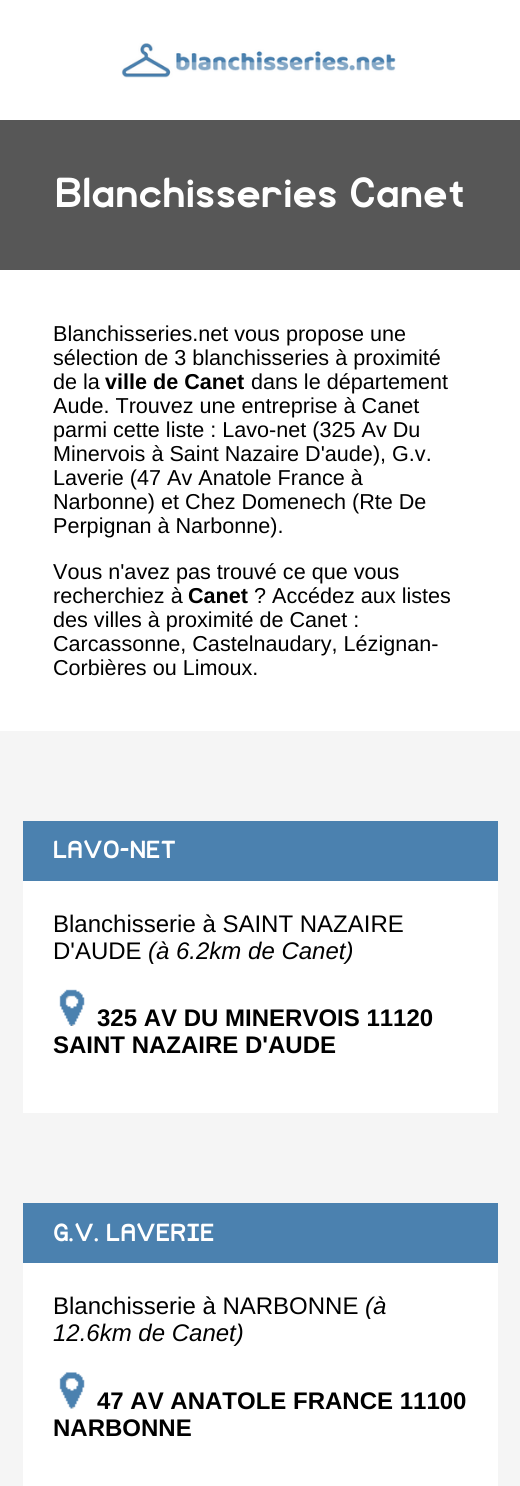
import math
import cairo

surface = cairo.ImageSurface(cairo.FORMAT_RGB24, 520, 1486)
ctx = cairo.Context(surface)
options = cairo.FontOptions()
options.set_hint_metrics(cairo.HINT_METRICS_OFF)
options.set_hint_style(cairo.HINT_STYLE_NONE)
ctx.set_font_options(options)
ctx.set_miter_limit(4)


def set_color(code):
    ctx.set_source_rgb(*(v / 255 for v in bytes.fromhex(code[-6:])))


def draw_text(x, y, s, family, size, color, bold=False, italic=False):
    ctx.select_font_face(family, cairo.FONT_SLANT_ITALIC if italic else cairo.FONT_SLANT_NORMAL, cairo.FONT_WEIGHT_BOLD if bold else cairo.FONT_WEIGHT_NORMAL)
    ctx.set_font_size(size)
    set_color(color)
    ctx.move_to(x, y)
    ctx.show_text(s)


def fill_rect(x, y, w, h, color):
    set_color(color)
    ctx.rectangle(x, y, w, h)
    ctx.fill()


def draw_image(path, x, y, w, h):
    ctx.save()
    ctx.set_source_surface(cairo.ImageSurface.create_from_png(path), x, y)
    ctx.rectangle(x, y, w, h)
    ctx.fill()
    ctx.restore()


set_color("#f5f5f5")
ctx.paint()
fill_rect(0, 0, 520, 120, "#ffffff")
draw_image("assets/img1.png", 121, 43, 275, 35)
fill_rect(0, 120, 520, 150, "#575757")
draw_text(55, 207, "Blanchisseries Canet", "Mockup", 40.75, "#ffffff", bold=True)
fill_rect(0, 270, 520, 461, "#ffffff")
draw_text(53, 341, "Blanchisseries.net vous propose une", "Liberation Sans", 21.6, "#000000")
draw_text(53, 365, "sélection de 3 blanchisseries à proximité", "Liberation Sans", 21.6, "#000000")
draw_text(53, 389, "de la", "Liberation Sans", 21.6, "#000000")
draw_text(105, 389, "ville de Canet", "Liberation Sans", 21.6, "#000000", bold=True)
draw_text(251, 389, "dans le département", "Liberation Sans", 21.6, "#000000")
draw_text(53, 413, "Aude. Trouvez une entreprise à Canet", "Liberation Sans", 21.6, "#000000")
draw_text(53, 437, "parmi cette liste : Lavo-net (325 Av Du", "Liberation Sans", 21.6, "#000000")
draw_text(53, 461, "Minervois à Saint Nazaire D'aude), G.v.", "Liberation Sans", 21.6, "#000000")
draw_text(53, 485, "Laverie (47 Av Anatole France à", "Liberation Sans", 21.6, "#000000")
draw_text(53, 509, "Narbonne) et Chez Domenech (Rte De", "Liberation Sans", 21.6, "#000000")
draw_text(53, 533, "Perpignan à Narbonne).", "Liberation Sans", 21.6, "#000000")
draw_text(53, 579, "Vous n'avez pas trouvé ce que vous", "Liberation Sans", 21.6, "#000000")
draw_text(53, 603, "recherchiez à", "Liberation Sans", 21.6, "#000000")
draw_text(188, 603, "Canet", "Liberation Sans", 21.6, "#000000", bold=True)
draw_text(254, 603, "? Accédez aux listes", "Liberation Sans", 21.6, "#000000")
draw_text(53, 627, "des villes à proximité de Canet :", "Liberation Sans", 21.6, "#000000")
draw_text(53, 651, "Carcassonne, Castelnaudary, Lézignan-", "Liberation Sans", 21.6, "#000000")
draw_text(53, 675, "Corbières ou Limoux.", "Liberation Sans", 21.6, "#000000")
fill_rect(23, 821, 475, 60, "#4b81af")
draw_text(53, 858, "LAVO-NET", "Mockup", 24, "#ffffff", bold=True)
fill_rect(23, 881, 475, 232, "#ffffff")
draw_text(53, 932, "Blanchisserie à SAINT NAZAIRE", "Liberation Sans", 24, "#000000")
draw_text(53, 959, "D'AUDE", "Liberation Sans", 24, "#000000")
draw_text(148, 959, "(à 6.2km de Canet)", "Liberation Sans", 24, "#000000", italic=True)
draw_image("assets/img2.png", 59, 989, 26, 37)
draw_text(97, 1026, "325 AV DU MINERVOIS 11120", "Liberation Sans", 24, "#000000", bold=True)
draw_text(53, 1053, "SAINT NAZAIRE D'AUDE", "Liberation Sans", 24, "#000000", bold=True)
fill_rect(23, 1203, 475, 60, "#4b81af")
draw_text(53, 1241, "G.V. LAVERIE", "Mockup", 24, "#ffffff", bold=True)
fill_rect(23, 1263, 475, 223, "#ffffff")
draw_text(53, 1314, "Blanchisserie à NARBONNE", "Liberation Sans", 24, "#000000")
draw_text(365, 1314, "(à", "Liberation Sans", 24, "#000000", italic=True)
draw_text(53, 1341, "12.6km de Canet)", "Liberation Sans", 24, "#000000", italic=True)
draw_image("assets/img3.png", 59, 1372, 26, 37)
draw_text(97, 1409, "47 AV ANATOLE FRANCE 11100", "Liberation Sans", 24, "#000000", bold=True)
draw_text(53, 1436, "NARBONNE", "Liberation Sans", 24, "#000000", bold=True)
surface.write_to_png("output.png")
